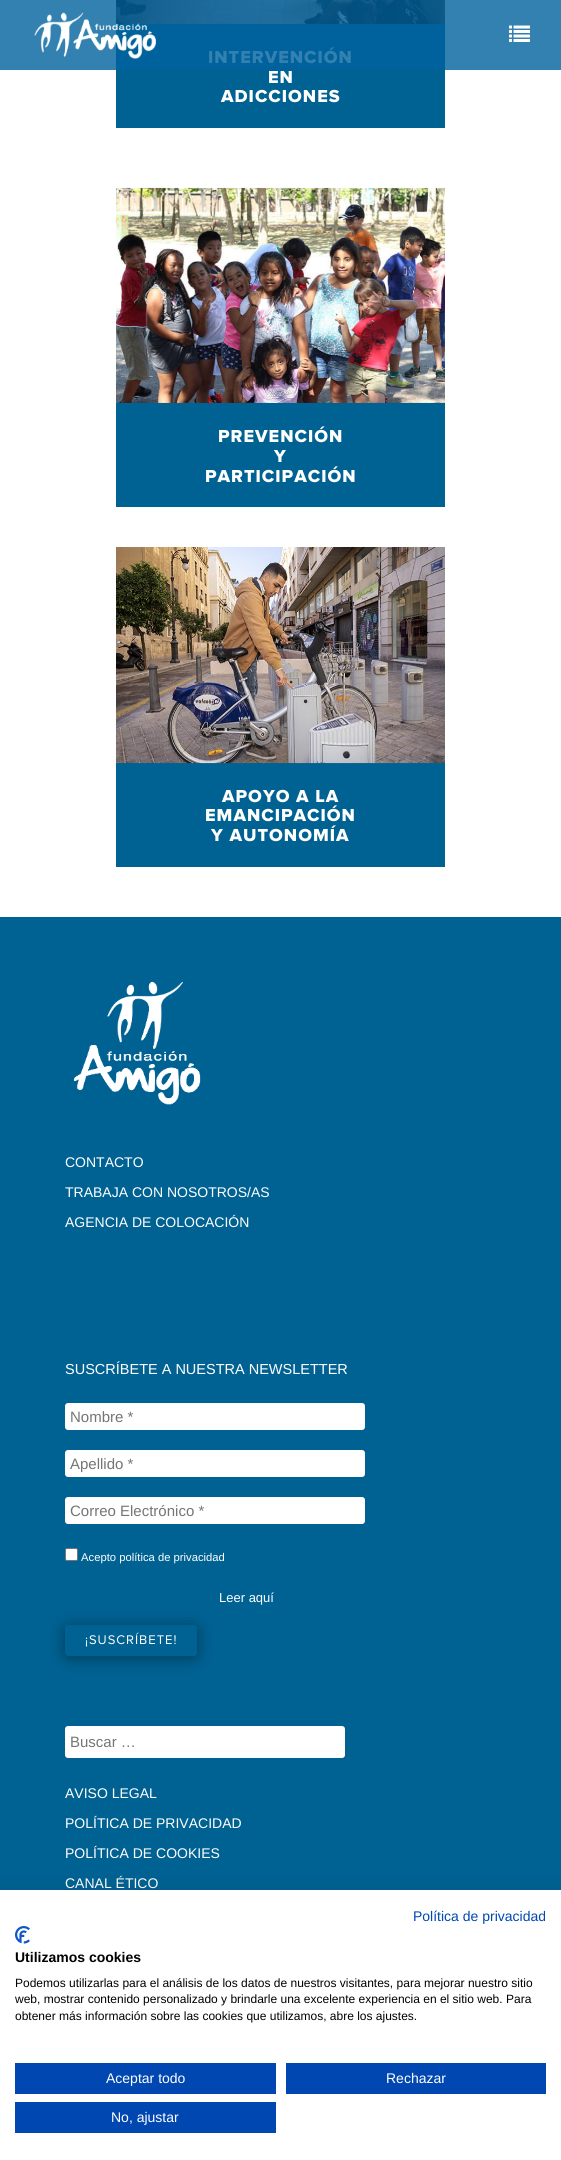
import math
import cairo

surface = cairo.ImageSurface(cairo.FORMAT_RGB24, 561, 2160)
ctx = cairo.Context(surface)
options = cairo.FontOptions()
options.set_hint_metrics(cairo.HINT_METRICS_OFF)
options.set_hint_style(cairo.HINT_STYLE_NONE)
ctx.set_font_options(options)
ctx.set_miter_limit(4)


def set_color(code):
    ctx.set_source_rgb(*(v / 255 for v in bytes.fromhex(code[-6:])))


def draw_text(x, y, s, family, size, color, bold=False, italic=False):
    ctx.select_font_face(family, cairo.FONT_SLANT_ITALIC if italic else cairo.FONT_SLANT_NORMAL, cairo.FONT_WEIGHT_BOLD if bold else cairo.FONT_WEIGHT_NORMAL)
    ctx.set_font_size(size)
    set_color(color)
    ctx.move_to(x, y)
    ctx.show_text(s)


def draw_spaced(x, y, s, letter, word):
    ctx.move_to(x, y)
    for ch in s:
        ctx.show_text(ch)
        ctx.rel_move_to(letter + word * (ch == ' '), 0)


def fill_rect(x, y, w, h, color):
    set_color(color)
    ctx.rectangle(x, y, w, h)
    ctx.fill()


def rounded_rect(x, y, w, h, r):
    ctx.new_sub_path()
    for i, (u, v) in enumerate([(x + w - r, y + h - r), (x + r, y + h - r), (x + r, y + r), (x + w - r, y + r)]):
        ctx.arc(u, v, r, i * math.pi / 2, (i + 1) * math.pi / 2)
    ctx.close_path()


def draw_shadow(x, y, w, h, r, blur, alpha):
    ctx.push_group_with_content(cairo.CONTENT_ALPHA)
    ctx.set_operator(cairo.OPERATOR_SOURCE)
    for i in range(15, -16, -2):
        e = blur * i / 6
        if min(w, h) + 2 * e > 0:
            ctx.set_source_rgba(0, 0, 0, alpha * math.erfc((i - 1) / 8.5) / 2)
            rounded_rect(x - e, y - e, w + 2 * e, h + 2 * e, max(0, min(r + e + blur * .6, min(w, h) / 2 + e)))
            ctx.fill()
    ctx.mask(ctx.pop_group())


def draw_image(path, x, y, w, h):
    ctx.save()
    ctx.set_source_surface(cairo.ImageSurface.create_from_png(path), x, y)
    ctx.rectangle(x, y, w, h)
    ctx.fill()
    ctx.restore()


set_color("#ffffff")
ctx.paint()
fill_rect(0, 0, 561, 70, "#3381b1")
fill_rect(116, 24, 329, 46, "#00629c")
draw_image("assets/img3.png", 116, 0, 329, 25)
draw_image("assets/img1.png", 34, 12, 122, 48)
draw_image("assets/img2.png", 509, 25, 21, 17)
fill_rect(116, 70, 329, 58, "#006293")
ctx.select_font_face("Proxima Nova ExtraBold")
ctx.set_font_size(18)
set_color("#3381b1")
draw_spaced(208, 63, "INTERVENCIÓN", 1, 0)
set_color("#ffffff")
draw_spaced(268, 83, "EN", 1, 0)
draw_spaced(221, 102, "ADICCIONES", 1, 0)
fill_rect(116, 402, 329, 105, "#006293")
draw_image("assets/img4.png", 116, 187, 329, 216)
set_color("#ffffff")
draw_spaced(218, 442, "PREVENCIÓN", 1, 0)
draw_spaced(274, 462, "Y", 1, 0)
draw_spaced(205, 482, "PARTICIPACIÓN", 1, 0)
fill_rect(116, 763, 329, 104, "#006293")
draw_image("assets/img5.png", 116, 547, 329, 217)
set_color("#ffffff")
draw_spaced(222, 802, "APOYO A LA", 1, 0)
draw_spaced(205, 821, "EMANCIPACIÓN", 1, 0)
draw_spaced(211, 841, "Y AUTONOMÍA", 1, 0)
fill_rect(0, 917, 561, 973, "#006293")
draw_image("assets/img6.png", 73, 981, 128, 124)
draw_text(65, 1167, "CONTACTO", "Liberation Sans", 14, "#ffffff")
draw_text(65, 1197, "TRABAJA CON NOSOTROS/AS", "Liberation Sans", 14, "#ffffff")
draw_text(65, 1227, "AGENCIA DE COLOCACIÓN", "Liberation Sans", 14, "#ffffff")
draw_text(65, 1374, "SUSCRÍBETE A NUESTRA NEWSLETTER", "Liberation Sans", 14.5, "#ffffff")
rounded_rect(65, 1403, 300, 27, 3)
ctx.fill()
draw_text(70, 1422, "Nombre *", "Liberation Sans", 15, "#757575")
set_color("#ffffff")
rounded_rect(65, 1450, 300, 27, 3)
ctx.fill()
draw_text(70, 1469, "Apellido *", "Liberation Sans", 15, "#757575")
set_color("#ffffff")
rounded_rect(65, 1497, 300, 27, 3)
ctx.fill()
draw_text(70, 1516, "Correo Electrónico *", "Liberation Sans", 15, "#757575")
set_color("#ffffff")
rounded_rect(65.5, 1548.5, 12, 12, 1.5)
ctx.fill_preserve()
set_color("#767676")
ctx.set_line_width(1)
ctx.stroke()
draw_text(81, 1561, "Acepto política de privacidad", "Liberation Sans", 11.25, "#ffffff")
set_color("#000000")
draw_shadow(65, 1627, 132, 31, 3, 8.5, 0.4)
draw_text(219, 1602, "Leer aquí", "Liberation Sans", 13, "#ffffff")
set_color("#006293")
rounded_rect(65, 1625, 132, 31, 3)
ctx.fill()
ctx.select_font_face("Proxima Nova")
set_color("#ffffff")
draw_spaced(85, 1644, "¡SUSCRÍBETE!", 1, 0)
rounded_rect(65, 1726, 280, 32, 3)
ctx.fill()
draw_text(70, 1747, "Buscar …", "Liberation Sans", 15, "#757575")
draw_text(65, 1798, "AVISO LEGAL", "Liberation Sans", 14, "#ffffff")
draw_text(65, 1828, "POLÍTICA DE PRIVACIDAD", "Liberation Sans", 14, "#ffffff")
draw_text(65, 1858, "POLÍTICA DE COOKIES", "Liberation Sans", 14, "#ffffff")
draw_text(65, 1888, "CANAL ÉTICO", "Liberation Sans", 14, "#ffffff")
set_color("#000000")
draw_shadow(0, 1890, 561, 270, 0, 12, 0.1)
fill_rect(0, 1890, 561, 270, "#ffffff")
draw_text(413, 1921, "Política de privacidad", "Liberation Sans", 14, "#0047b2")
draw_image("assets/img7.png", 15, 1926, 15, 18)
draw_text(15, 1962, "Utilizamos cookies", "Liberation Sans", 14, "#000000", bold=True)
draw_text(15, 1987, "Podemos utilizarlas para el análisis de los datos de nuestros visitantes, para mejorar nuestro sitio", "Liberation Sans", 12, "#000000")
draw_text(15, 2003, "web, mostrar contenido personalizado y brindarle una excelente experiencia en el sitio web. Para", "Liberation Sans", 12, "#000000")
draw_text(15, 2020, "obtener más información sobre las cookies que utilizamos, abre los ajustes.", "Liberation Sans", 12, "#000000")
fill_rect(15, 2063, 261, 31, "#0047b2")
draw_text(106, 2083, "Aceptar todo", "Liberation Sans", 14, "#ffffff")
fill_rect(286, 2063, 260, 31, "#0047b2")
draw_text(386, 2083, "Rechazar", "Liberation Sans", 14, "#ffffff")
fill_rect(15, 2102, 261, 31, "#0047b2")
draw_text(111, 2122, "No, ajustar", "Liberation Sans", 14, "#ffffff")
surface.write_to_png("output.png")
